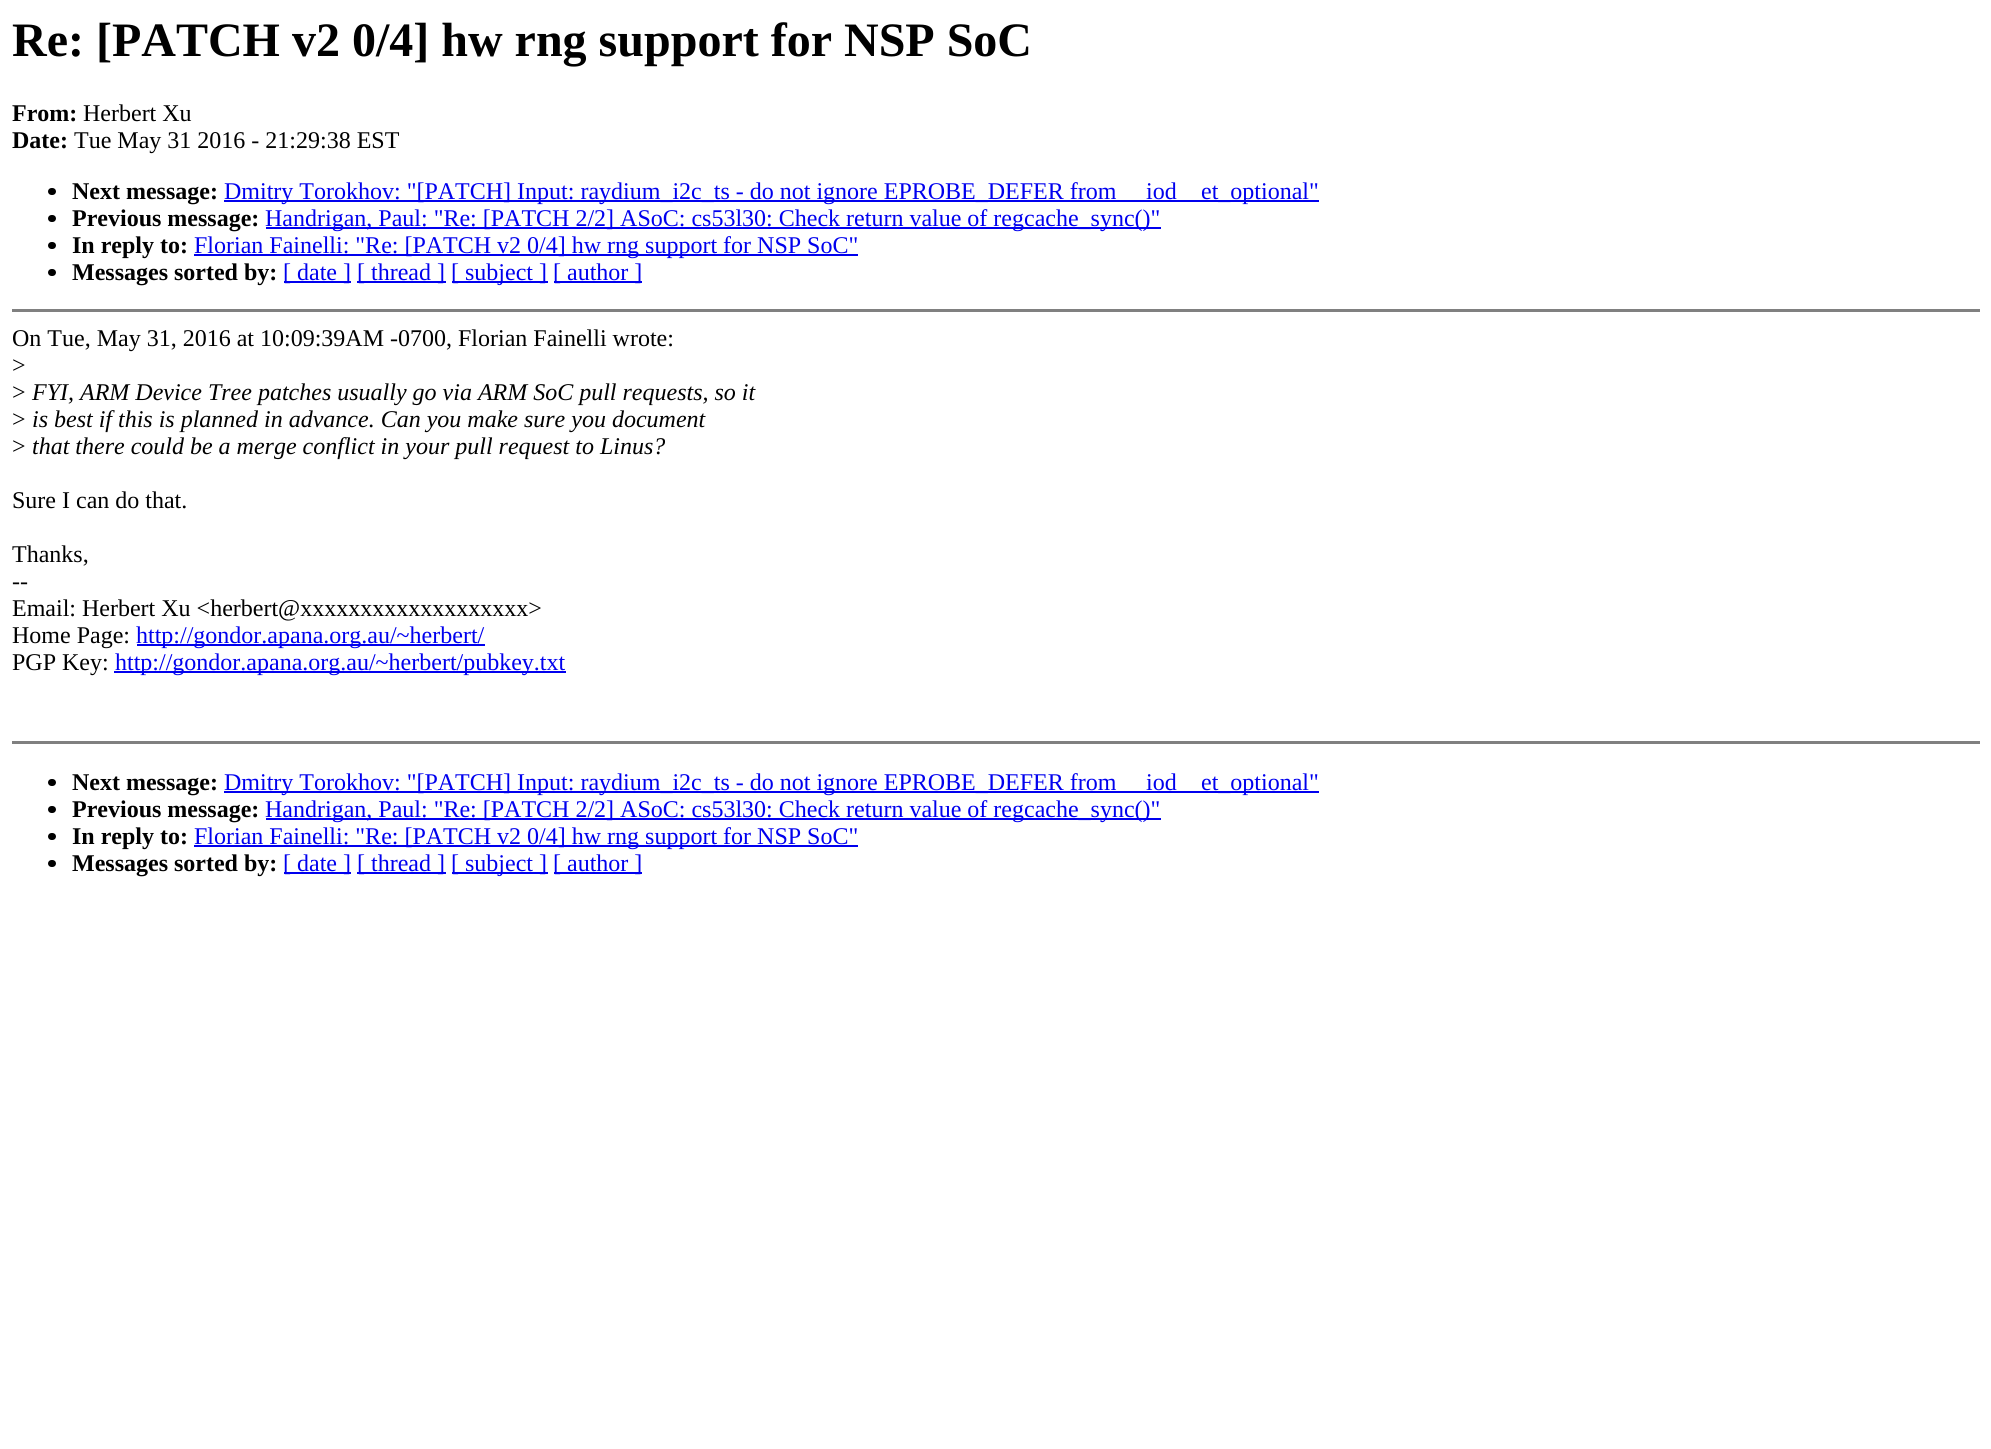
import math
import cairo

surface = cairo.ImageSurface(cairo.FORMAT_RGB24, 1991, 1449)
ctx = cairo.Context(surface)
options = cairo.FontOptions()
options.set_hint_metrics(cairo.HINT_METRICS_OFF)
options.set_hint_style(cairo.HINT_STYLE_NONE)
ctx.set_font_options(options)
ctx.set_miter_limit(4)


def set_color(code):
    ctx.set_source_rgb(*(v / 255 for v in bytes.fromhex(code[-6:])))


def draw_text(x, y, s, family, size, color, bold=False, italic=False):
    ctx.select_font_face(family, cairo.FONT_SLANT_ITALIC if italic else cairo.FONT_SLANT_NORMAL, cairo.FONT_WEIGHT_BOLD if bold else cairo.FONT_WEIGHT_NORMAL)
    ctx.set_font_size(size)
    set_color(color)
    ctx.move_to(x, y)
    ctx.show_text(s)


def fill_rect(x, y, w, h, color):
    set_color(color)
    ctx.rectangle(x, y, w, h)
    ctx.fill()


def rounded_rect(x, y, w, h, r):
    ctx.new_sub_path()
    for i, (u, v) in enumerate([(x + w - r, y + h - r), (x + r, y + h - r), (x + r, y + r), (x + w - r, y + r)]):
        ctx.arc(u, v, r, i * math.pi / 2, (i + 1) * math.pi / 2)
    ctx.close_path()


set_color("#ffffff")
ctx.paint()
draw_text(12, 56, "Re: [PATCH v2 0/4] hw rng support for NSP SoC", "Liberation Serif", 48, "#000000", bold=True)
draw_text(12, 121, "From:", "Liberation Serif", 24, "#000000", bold=True)
draw_text(83, 121, "Herbert Xu", "Liberation Serif", 24, "#000000")
draw_text(12, 148, "Date:", "Liberation Serif", 24, "#000000", bold=True)
draw_text(74, 148, "Tue May 31 2016 - 21:29:38 EST", "Liberation Serif", 24, "#000000")
rounded_rect(48, 188, 8, 7, 3.5)
ctx.fill()
draw_text(72, 199, "Next message:", "Liberation Serif", 24, "#000000", bold=True)
fill_rect(224, 200, 1095, 2, "#0000ee")
draw_text(224, 199, "Dmitry Torokhov: \"[PATCH] Input: raydium_i2c_ts - do not ignore EPROBE_DEFER from", "Liberation Serif", 24, "#0000ee")
draw_text(1146, 199, "iod", "Liberation Serif", 24, "#0000ee")
draw_text(1201, 199, "et_optional\"", "Liberation Serif", 24, "#0000ee")
set_color("#000000")
rounded_rect(48, 215, 8, 7, 3.5)
ctx.fill()
draw_text(72, 226, "Previous message:", "Liberation Serif", 24, "#000000", bold=True)
fill_rect(266, 227, 895, 2, "#0000ee")
draw_text(265, 226, "Handrigan, Paul: \"Re: [PATCH 2/2] ASoC: cs53l30: Check return value of regcache_sync()\"", "Liberation Serif", 24, "#0000ee")
set_color("#000000")
rounded_rect(48, 242, 8, 7, 3.5)
ctx.fill()
draw_text(72, 253, "In reply to:", "Liberation Serif", 24, "#000000", bold=True)
fill_rect(194, 254, 664, 2, "#0000ee")
draw_text(194, 253, "Florian Fainelli: \"Re: [PATCH v2 0/4] hw rng support for NSP SoC\"", "Liberation Serif", 24, "#0000ee")
set_color("#000000")
rounded_rect(48, 269, 8, 7, 3.5)
ctx.fill()
draw_text(72, 280, "Messages sorted by:", "Liberation Serif", 24, "#000000", bold=True)
fill_rect(284, 281, 67, 2, "#0000ee")
draw_text(283, 280, "[ date ]", "Liberation Serif", 24, "#0000ee")
fill_rect(357, 281, 89, 2, "#0000ee")
draw_text(357, 280, "[ thread ]", "Liberation Serif", 24, "#0000ee")
fill_rect(452, 281, 96, 2, "#0000ee")
draw_text(451, 280, "[ subject ]", "Liberation Serif", 24, "#0000ee")
fill_rect(554, 281, 88, 2, "#0000ee")
draw_text(553, 280, "[ author ]", "Liberation Serif", 24, "#0000ee")
fill_rect(12, 309, 1968, 3, "#808080")
draw_text(12, 346, "On Tue, May 31, 2016 at 10:09:39AM -0700, Florian Fainelli wrote:", "Liberation Serif", 24, "#000000")
draw_text(12, 373, ">", "Liberation Serif", 24, "#000000")
draw_text(12, 400, ">", "Liberation Serif", 24, "#000000")
draw_text(32, 400, "FYI, ARM Device Tree patches usually go via ARM SoC pull requests, so it", "Liberation Serif", 24, "#000000", italic=True)
draw_text(12, 427, ">", "Liberation Serif", 24, "#000000")
draw_text(32, 427, "is best if this is planned in advance. Can you make sure you document", "Liberation Serif", 24, "#000000", italic=True)
draw_text(12, 454, ">", "Liberation Serif", 24, "#000000")
draw_text(32, 454, "that there could be a merge conflict in your pull request to Linus?", "Liberation Serif", 24, "#000000", italic=True)
draw_text(12, 508, "Sure I can do that.", "Liberation Serif", 24, "#000000")
draw_text(12, 562, "Thanks,", "Liberation Serif", 24, "#000000")
draw_text(12, 589, "--", "Liberation Serif", 24, "#000000")
draw_text(12, 616, "Email: Herbert Xu <herbert@xxxxxxxxxxxxxxxxxxx>", "Liberation Serif", 24, "#000000")
draw_text(12, 643, "Home Page:", "Liberation Serif", 24, "#000000")
fill_rect(137, 644, 348, 2, "#0000ee")
draw_text(136, 643, "http://gondor.apana.org.au/~herbert/", "Liberation Serif", 24, "#0000ee")
draw_text(12, 670, "PGP Key:", "Liberation Serif", 24, "#000000")
fill_rect(114, 671, 452, 2, "#0000ee")
draw_text(115, 670, "http://gondor.apana.org.au/~herbert/pubkey.txt", "Liberation Serif", 24, "#0000ee")
fill_rect(12, 741, 1968, 3, "#808080")
set_color("#000000")
rounded_rect(48, 779, 8, 7, 3.5)
ctx.fill()
draw_text(72, 790, "Next message:", "Liberation Serif", 24, "#000000", bold=True)
fill_rect(224, 791, 1095, 2, "#0000ee")
draw_text(224, 790, "Dmitry Torokhov: \"[PATCH] Input: raydium_i2c_ts - do not ignore EPROBE_DEFER from", "Liberation Serif", 24, "#0000ee")
draw_text(1146, 790, "iod", "Liberation Serif", 24, "#0000ee")
draw_text(1201, 790, "et_optional\"", "Liberation Serif", 24, "#0000ee")
set_color("#000000")
rounded_rect(48, 806, 8, 7, 3.5)
ctx.fill()
draw_text(72, 817, "Previous message:", "Liberation Serif", 24, "#000000", bold=True)
fill_rect(266, 818, 895, 2, "#0000ee")
draw_text(265, 817, "Handrigan, Paul: \"Re: [PATCH 2/2] ASoC: cs53l30: Check return value of regcache_sync()\"", "Liberation Serif", 24, "#0000ee")
set_color("#000000")
rounded_rect(48, 833, 8, 7, 3.5)
ctx.fill()
draw_text(72, 844, "In reply to:", "Liberation Serif", 24, "#000000", bold=True)
fill_rect(194, 845, 664, 2, "#0000ee")
draw_text(194, 844, "Florian Fainelli: \"Re: [PATCH v2 0/4] hw rng support for NSP SoC\"", "Liberation Serif", 24, "#0000ee")
set_color("#000000")
rounded_rect(48, 860, 8, 7, 3.5)
ctx.fill()
draw_text(72, 871, "Messages sorted by:", "Liberation Serif", 24, "#000000", bold=True)
fill_rect(284, 872, 67, 2, "#0000ee")
draw_text(283, 871, "[ date ]", "Liberation Serif", 24, "#0000ee")
fill_rect(357, 872, 89, 2, "#0000ee")
draw_text(357, 871, "[ thread ]", "Liberation Serif", 24, "#0000ee")
fill_rect(452, 872, 96, 2, "#0000ee")
draw_text(451, 871, "[ subject ]", "Liberation Serif", 24, "#0000ee")
fill_rect(554, 872, 88, 2, "#0000ee")
draw_text(553, 871, "[ author ]", "Liberation Serif", 24, "#0000ee")
surface.write_to_png("output.png")
